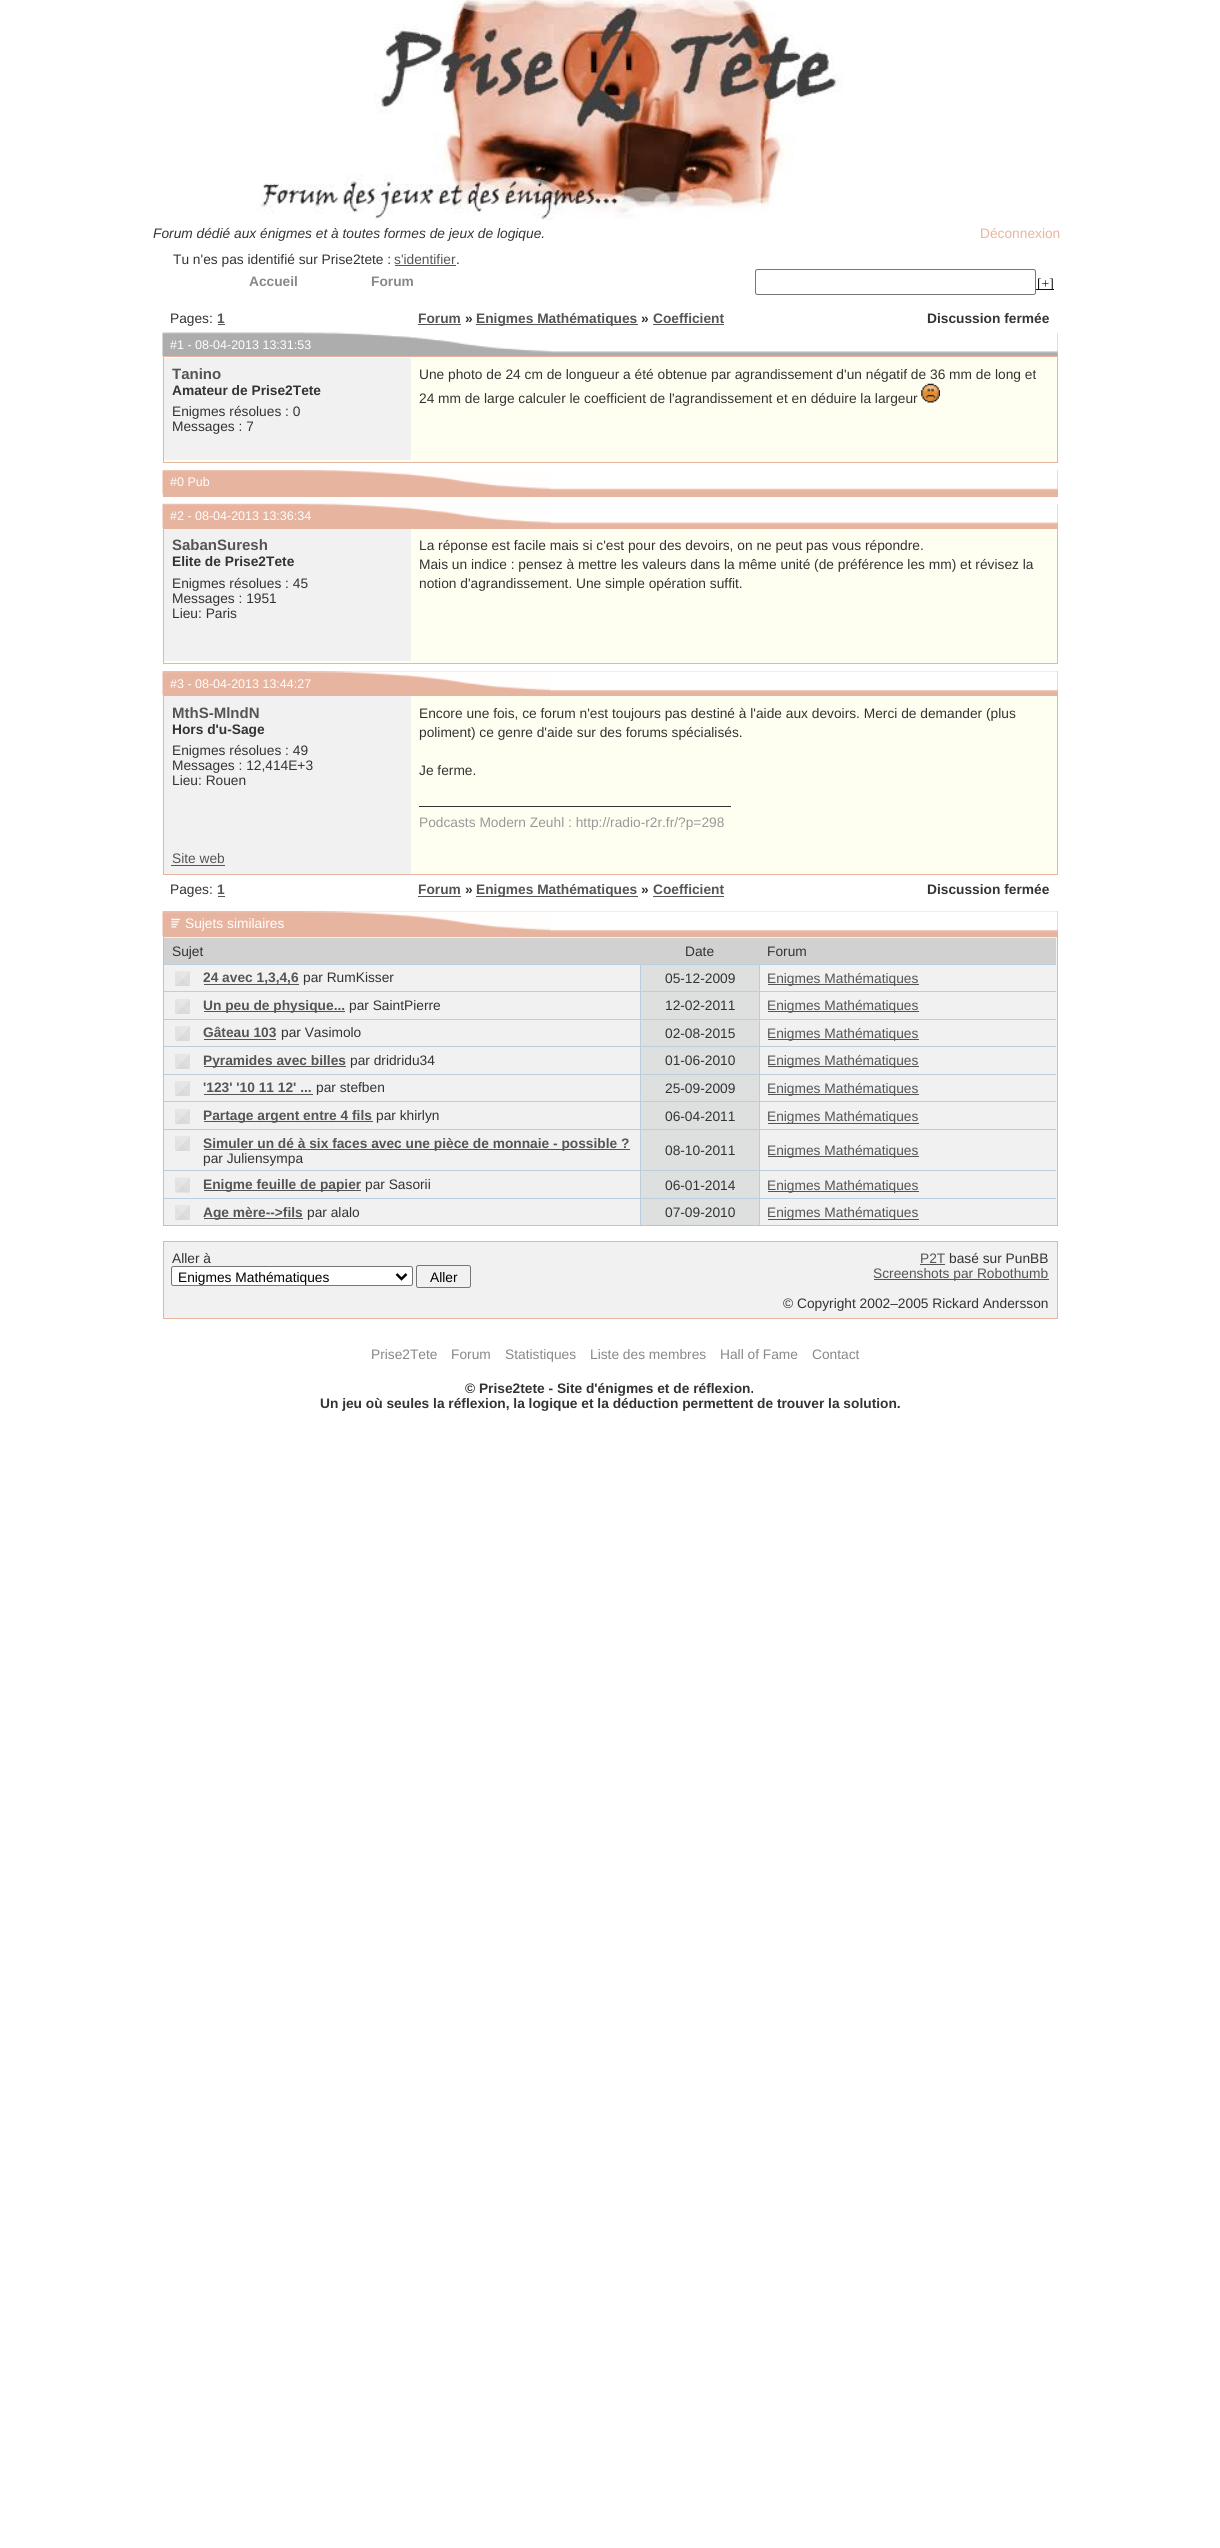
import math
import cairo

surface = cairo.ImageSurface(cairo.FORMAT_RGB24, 1220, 2548)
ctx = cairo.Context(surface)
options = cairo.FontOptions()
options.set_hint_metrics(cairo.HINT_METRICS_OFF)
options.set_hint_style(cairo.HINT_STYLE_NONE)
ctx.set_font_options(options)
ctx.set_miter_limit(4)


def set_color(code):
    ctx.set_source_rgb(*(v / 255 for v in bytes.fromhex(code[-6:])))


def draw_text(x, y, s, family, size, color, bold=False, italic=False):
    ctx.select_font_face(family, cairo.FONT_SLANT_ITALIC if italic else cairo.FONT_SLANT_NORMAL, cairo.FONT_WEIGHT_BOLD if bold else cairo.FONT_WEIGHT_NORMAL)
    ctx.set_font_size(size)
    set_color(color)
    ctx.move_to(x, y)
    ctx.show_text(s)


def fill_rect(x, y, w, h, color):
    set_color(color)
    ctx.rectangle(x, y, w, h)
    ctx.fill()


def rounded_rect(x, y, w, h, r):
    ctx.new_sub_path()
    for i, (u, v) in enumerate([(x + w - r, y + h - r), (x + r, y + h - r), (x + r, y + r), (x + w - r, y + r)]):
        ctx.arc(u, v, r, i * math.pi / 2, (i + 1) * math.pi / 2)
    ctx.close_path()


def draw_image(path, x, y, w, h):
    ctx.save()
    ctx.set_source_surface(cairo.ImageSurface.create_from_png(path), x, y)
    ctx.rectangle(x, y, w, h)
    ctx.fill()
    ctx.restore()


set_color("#ffffff")
ctx.paint()
draw_image("assets/img1.png", 257, 0, 586, 220)
draw_text(153, 238, "Forum dédié aux énigmes et à toutes formes de jeux de logique.", "Liberation Sans", 13.75, "#333333", italic=True)
draw_text(980, 238, "Déconnexion", "Liberation Sans", 13.75, "#e7b49f")
draw_text(173, 264, "Tu n'es pas identifié sur Prise2tete :", "Liberation Sans", 13.75, "#333333")
draw_text(394, 264, "s'identifier", "Liberation Sans", 13.75, "#555555")
fill_rect(395, 265, 61, 1, "#555555")
draw_text(456, 264, ".", "Liberation Sans", 13.75, "#333333")
draw_text(249, 286, "Accueil", "Liberation Sans", 13.75, "#888888", bold=True)
draw_text(371, 286, "Forum", "Liberation Sans", 13.75, "#888888", bold=True)
rounded_rect(755.5, 269.5, 280, 25, 2)
set_color("#767676")
ctx.set_line_width(1)
ctx.stroke()
fill_rect(1036, 289, 18, 1, "#111111")
draw_text(1037, 288, "[+]", "Liberation Serif", 13.75, "#111111")
draw_text(170, 323, "Pages:", "Liberation Sans", 13.75, "#333333")
draw_text(217, 323, "1", "Liberation Sans", 13.75, "#555555", bold=True)
fill_rect(218, 324, 7, 1, "#555555")
draw_text(418, 323, "Forum", "Liberation Sans", 13.75, "#555555", bold=True)
fill_rect(418, 324, 43, 1, "#555555")
draw_text(465, 323, "»", "Liberation Sans", 13.75, "#333333", bold=True)
fill_rect(476, 324, 162, 1, "#555555")
draw_text(476, 323, "Enigmes Mathématiques", "Liberation Sans", 13.75, "#555555", bold=True)
draw_text(641, 323, "»", "Liberation Sans", 13.75, "#333333", bold=True)
draw_text(653, 323, "Coefficient", "Liberation Sans", 13.75, "#555555", bold=True)
fill_rect(653, 324, 71, 1, "#555555")
draw_text(927, 323, "Discussion fermée", "Liberation Sans", 13.75, "#333333", bold=True)
fill_rect(1057, 333, 1, 23, "#e7b49f")
draw_image("assets/img2.png", 162, 332, 896, 25)
draw_text(170, 349, "#1 - 08-04-2013 13:31:53", "Liberation Sans", 12.5, "#ffffff")
set_color("#fffff1")
ctx.rectangle(163.5, 356.5, 894, 106)
ctx.fill_preserve()
set_color("#e7b49f")
ctx.stroke()
fill_rect(164, 358, 247, 102, "#f1f1f1")
draw_text(172, 379, "Tanino", "Liberation Sans", 15, "#555555", bold=True)
draw_text(172, 395, "Amateur de Prise2Tete", "Liberation Sans", 13.75, "#333333", bold=True)
draw_text(172, 416, "Enigmes résolues : 0", "Liberation Sans", 13.75, "#333333")
draw_text(172, 431, "Messages : 7", "Liberation Sans", 13.75, "#333333")
draw_text(419, 379, "Une photo de 24 cm de longueur a été obtenue par agrandissement d'un négatif de 36 mm de long et", "Liberation Sans", 13.75, "#333333")
draw_text(419, 403, "24 mm de large calculer le coefficient de l'agrandissement et en déduire la largeur", "Liberation Sans", 13.75, "#333333")
draw_image("assets/img3.png", 921, 383, 19, 20)
fill_rect(163, 470, 895, 27, "#e7b49f")
draw_image("assets/img4.png", 162, 470, 896, 24)
draw_text(170, 486, "#0 Pub", "Liberation Sans", 12.5, "#ffffff")
fill_rect(163, 504, 895, 24, "#e7b49f")
draw_image("assets/img5.png", 162, 503, 896, 25)
draw_text(170, 520, "#2 - 08-04-2013 13:36:34", "Liberation Sans", 12.5, "#ffffff")
set_color("#fffff1")
ctx.rectangle(163.5, 528.5, 894, 135)
ctx.fill_preserve()
set_color("#e7b49f")
ctx.stroke()
fill_rect(164, 529, 247, 132, "#f1f1f1")
draw_text(172, 550, "SabanSuresh", "Liberation Sans", 15, "#555555", bold=True)
draw_text(172, 566, "Elite de Prise2Tete", "Liberation Sans", 13.75, "#333333", bold=True)
draw_text(172, 588, "Enigmes résolues : 45", "Liberation Sans", 13.75, "#333333")
draw_text(172, 603, "Messages : 1951", "Liberation Sans", 13.75, "#333333")
draw_text(172, 618, "Lieu: Paris", "Liberation Sans", 13.75, "#333333")
draw_text(419, 550, "La réponse est facile mais si c'est pour des devoirs, on ne peut pas vous répondre.", "Liberation Sans", 13.75, "#333333")
draw_text(419, 569, "Mais un indice : pensez à mettre les valeurs dans la même unité (de préférence les mm) et révisez la", "Liberation Sans", 13.75, "#333333")
draw_text(419, 588, "notion d'agrandissement. Une simple opération suffit.", "Liberation Sans", 13.75, "#333333")
fill_rect(163, 671, 895, 24, "#e7b49f")
draw_image("assets/img6.png", 162, 671, 896, 24)
draw_text(170, 688, "#3 - 08-04-2013 13:44:27", "Liberation Sans", 12.5, "#ffffff")
fill_rect(411, 696, 646, 178, "#fffff1")
ctx.rectangle(163.5, 695.5, 894, 179)
set_color("#e7b49f")
ctx.stroke()
fill_rect(164, 696, 247, 178, "#f1f1f1")
draw_text(172, 718, "MthS-MlndN", "Liberation Sans", 15, "#555555", bold=True)
draw_text(172, 734, "Hors d'u-Sage", "Liberation Sans", 13.75, "#333333", bold=True)
draw_text(172, 755, "Enigmes résolues : 49", "Liberation Sans", 13.75, "#333333")
draw_text(172, 770, "Messages : 12,414E+3", "Liberation Sans", 13.75, "#333333")
draw_text(172, 785, "Lieu: Rouen", "Liberation Sans", 13.75, "#333333")
draw_text(419, 718, "Encore une fois, ce forum n'est toujours pas destiné à l'aide aux devoirs. Merci de demander (plus", "Liberation Sans", 13.75, "#333333")
draw_text(419, 737, "poliment) ce genre d'aide sur des forums spécialisés.", "Liberation Sans", 13.75, "#333333")
draw_text(419, 775, "Je ferme.", "Liberation Sans", 13.75, "#333333")
fill_rect(419, 806, 312, 1, "#333333")
draw_text(419, 827, "Podcasts Modern Zeuhl : http://radio-r2r.fr/?p=298", "Liberation Sans", 13.75, "#999999")
draw_text(172, 863, "Site web", "Liberation Sans", 13.75, "#555555")
fill_rect(171, 865, 54, 1, "#555555")
draw_text(170, 894, "Pages:", "Liberation Sans", 13.75, "#333333")
draw_text(217, 894, "1", "Liberation Sans", 13.75, "#555555", bold=True)
fill_rect(218, 896, 7, 1, "#555555")
draw_text(418, 894, "Forum", "Liberation Sans", 13.75, "#555555", bold=True)
fill_rect(418, 896, 43, 1, "#555555")
draw_text(465, 894, "»", "Liberation Sans", 13.75, "#333333", bold=True)
fill_rect(476, 896, 162, 1, "#555555")
draw_text(476, 894, "Enigmes Mathématiques", "Liberation Sans", 13.75, "#555555", bold=True)
draw_text(641, 894, "»", "Liberation Sans", 13.75, "#333333", bold=True)
draw_text(653, 894, "Coefficient", "Liberation Sans", 13.75, "#555555", bold=True)
fill_rect(653, 896, 71, 1, "#555555")
draw_text(927, 894, "Discussion fermée", "Liberation Sans", 13.75, "#333333", bold=True)
fill_rect(163, 911, 895, 25, "#e7b49f")
draw_image("assets/img7.png", 162, 911, 896, 26)
draw_image("assets/img8.png", 171, 918, 10, 10)
draw_text(185, 928, "Sujets similaires", "Liberation Sans", 13.75, "#ffffff")
set_color("#f1f1f1")
ctx.rectangle(163.5, 936.5, 894, 289)
ctx.fill_preserve()
set_color("#e7b49f")
ctx.stroke()
fill_rect(164, 938, 892, 26, "#d1d1d1")
draw_text(172, 956, "Sujet", "Liberation Sans", 13.75, "#333333")
draw_text(685, 956, "Date", "Liberation Sans", 13.75, "#333333")
draw_text(767, 956, "Forum", "Liberation Sans", 13.75, "#333333")
set_color("#e6e6e6")
ctx.new_path()
ctx.move_to(175, 971)
ctx.line_to(190, 971)
ctx.line_to(182.5, 979)
ctx.close_path()
ctx.fill()
set_color("#dedede")
ctx.new_path()
ctx.move_to(190, 971)
ctx.line_to(190, 986)
ctx.line_to(182.5, 979)
ctx.close_path()
ctx.fill()
set_color("#dadada")
ctx.new_path()
ctx.move_to(190, 986)
ctx.line_to(175, 986)
ctx.line_to(182.5, 979)
ctx.close_path()
ctx.fill()
set_color("#e2e2e2")
ctx.new_path()
ctx.move_to(175, 986)
ctx.line_to(175, 971)
ctx.line_to(182.5, 979)
ctx.close_path()
ctx.fill()
fill_rect(204, 984, 95, 1, "#555555")
draw_text(203, 982, "24 avec 1,3,4,6", "Liberation Sans", 13.75, "#555555", bold=True)
draw_text(303, 982, "par RumKisser", "Liberation Sans", 13.75, "#333333")
fill_rect(641, 965, 118, 26, "#dedfdf")
fill_rect(164, 964, 892, 1, "#bbcede")
fill_rect(640, 964, 1, 27, "#bbcede")
draw_text(665, 983, "05-12-2009", "Liberation Sans", 13.75, "#333333")
fill_rect(164, 991, 892, 1, "#bbcede")
fill_rect(164, 1019, 892, 1, "#bbcede")
fill_rect(164, 1046, 892, 1, "#bbcede")
fill_rect(164, 1074, 892, 1, "#bbcede")
fill_rect(164, 1101, 892, 1, "#bbcede")
fill_rect(164, 1129, 892, 1, "#bbcede")
fill_rect(164, 1170, 892, 1, "#bbcede")
fill_rect(164, 1198, 892, 1, "#bbcede")
fill_rect(759, 964, 1, 261, "#bbcede")
fill_rect(768, 984, 151, 1, "#555555")
draw_text(767, 983, "Enigmes Mathématiques", "Liberation Sans", 13.75, "#555555")
set_color("#e6e6e6")
ctx.new_path()
ctx.move_to(175, 999)
ctx.line_to(190, 999)
ctx.line_to(182.5, 1006)
ctx.close_path()
ctx.fill()
set_color("#dedede")
ctx.new_path()
ctx.move_to(190, 999)
ctx.line_to(190, 1014)
ctx.line_to(182.5, 1006)
ctx.close_path()
ctx.fill()
set_color("#dadada")
ctx.new_path()
ctx.move_to(190, 1014)
ctx.line_to(175, 1014)
ctx.line_to(182.5, 1006)
ctx.close_path()
ctx.fill()
set_color("#e2e2e2")
ctx.new_path()
ctx.move_to(175, 1014)
ctx.line_to(175, 999)
ctx.line_to(182.5, 1006)
ctx.close_path()
ctx.fill()
fill_rect(204, 1011, 141, 1, "#555555")
draw_text(203, 1010, "Un peu de physique...", "Liberation Sans", 13.75, "#555555", bold=True)
draw_text(349, 1010, "par SaintPierre", "Liberation Sans", 13.75, "#333333")
fill_rect(641, 992, 118, 27, "#dedfdf")
fill_rect(640, 991, 1, 28, "#bbcede")
draw_text(665, 1010, "12-02-2011", "Liberation Sans", 13.75, "#333333")
fill_rect(768, 1011, 151, 1, "#555555")
draw_text(767, 1010, "Enigmes Mathématiques", "Liberation Sans", 13.75, "#555555")
set_color("#e6e6e6")
ctx.new_path()
ctx.move_to(175, 1026)
ctx.line_to(190, 1026)
ctx.line_to(182.5, 1034)
ctx.close_path()
ctx.fill()
set_color("#dedede")
ctx.new_path()
ctx.move_to(190, 1026)
ctx.line_to(190, 1041)
ctx.line_to(182.5, 1034)
ctx.close_path()
ctx.fill()
set_color("#dadada")
ctx.new_path()
ctx.move_to(190, 1041)
ctx.line_to(175, 1041)
ctx.line_to(182.5, 1034)
ctx.close_path()
ctx.fill()
set_color("#e2e2e2")
ctx.new_path()
ctx.move_to(175, 1041)
ctx.line_to(175, 1026)
ctx.line_to(182.5, 1034)
ctx.close_path()
ctx.fill()
draw_text(203, 1037, "Gâteau 103", "Liberation Sans", 13.75, "#555555", bold=True)
fill_rect(204, 1039, 72, 1, "#555555")
draw_text(281, 1037, "par Vasimolo", "Liberation Sans", 13.75, "#333333")
fill_rect(641, 1020, 118, 26, "#dedfdf")
fill_rect(640, 1019, 1, 27, "#bbcede")
draw_text(665, 1038, "02-08-2015", "Liberation Sans", 13.75, "#333333")
fill_rect(768, 1039, 151, 1, "#555555")
draw_text(767, 1038, "Enigmes Mathématiques", "Liberation Sans", 13.75, "#555555")
set_color("#e6e6e6")
ctx.new_path()
ctx.move_to(175, 1054)
ctx.line_to(190, 1054)
ctx.line_to(182.5, 1061)
ctx.close_path()
ctx.fill()
set_color("#dedede")
ctx.new_path()
ctx.move_to(190, 1054)
ctx.line_to(190, 1069)
ctx.line_to(182.5, 1061)
ctx.close_path()
ctx.fill()
set_color("#dadada")
ctx.new_path()
ctx.move_to(190, 1069)
ctx.line_to(175, 1069)
ctx.line_to(182.5, 1061)
ctx.close_path()
ctx.fill()
set_color("#e2e2e2")
ctx.new_path()
ctx.move_to(175, 1069)
ctx.line_to(175, 1054)
ctx.line_to(182.5, 1061)
ctx.close_path()
ctx.fill()
fill_rect(204, 1066, 142, 1, "#555555")
draw_text(203, 1065, "Pyramides avec billes", "Liberation Sans", 13.75, "#555555", bold=True)
draw_text(350, 1065, "par dridridu34", "Liberation Sans", 13.75, "#333333")
fill_rect(641, 1047, 118, 27, "#dedfdf")
fill_rect(640, 1046, 1, 28, "#bbcede")
draw_text(665, 1065, "01-06-2010", "Liberation Sans", 13.75, "#333333")
fill_rect(768, 1066, 151, 1, "#555555")
draw_text(767, 1065, "Enigmes Mathématiques", "Liberation Sans", 13.75, "#555555")
set_color("#e6e6e6")
ctx.new_path()
ctx.move_to(175, 1081)
ctx.line_to(190, 1081)
ctx.line_to(182.5, 1089)
ctx.close_path()
ctx.fill()
set_color("#dedede")
ctx.new_path()
ctx.move_to(190, 1081)
ctx.line_to(190, 1096)
ctx.line_to(182.5, 1089)
ctx.close_path()
ctx.fill()
set_color("#dadada")
ctx.new_path()
ctx.move_to(190, 1096)
ctx.line_to(175, 1096)
ctx.line_to(182.5, 1089)
ctx.close_path()
ctx.fill()
set_color("#e2e2e2")
ctx.new_path()
ctx.move_to(175, 1096)
ctx.line_to(175, 1081)
ctx.line_to(182.5, 1089)
ctx.close_path()
ctx.fill()
draw_text(203, 1092, "'123' '10 11 12' ...", "Liberation Sans", 13.75, "#555555", bold=True)
fill_rect(204, 1094, 109, 1, "#555555")
draw_text(316, 1092, "par stefben", "Liberation Sans", 13.75, "#333333")
fill_rect(641, 1075, 118, 26, "#dedfdf")
fill_rect(640, 1074, 1, 27, "#bbcede")
draw_text(665, 1093, "25-09-2009", "Liberation Sans", 13.75, "#333333")
fill_rect(768, 1094, 151, 1, "#555555")
draw_text(767, 1093, "Enigmes Mathématiques", "Liberation Sans", 13.75, "#555555")
set_color("#e6e6e6")
ctx.new_path()
ctx.move_to(175, 1109)
ctx.line_to(190, 1109)
ctx.line_to(182.5, 1116)
ctx.close_path()
ctx.fill()
set_color("#dedede")
ctx.new_path()
ctx.move_to(190, 1109)
ctx.line_to(190, 1124)
ctx.line_to(182.5, 1116)
ctx.close_path()
ctx.fill()
set_color("#dadada")
ctx.new_path()
ctx.move_to(190, 1124)
ctx.line_to(175, 1124)
ctx.line_to(182.5, 1116)
ctx.close_path()
ctx.fill()
set_color("#e2e2e2")
ctx.new_path()
ctx.move_to(175, 1124)
ctx.line_to(175, 1109)
ctx.line_to(182.5, 1116)
ctx.close_path()
ctx.fill()
fill_rect(204, 1121, 169, 1, "#555555")
draw_text(203, 1120, "Partage argent entre 4 fils", "Liberation Sans", 13.75, "#555555", bold=True)
draw_text(376, 1120, "par khirlyn", "Liberation Sans", 13.75, "#333333")
fill_rect(641, 1102, 118, 27, "#dedfdf")
fill_rect(640, 1101, 1, 28, "#bbcede")
draw_text(665, 1121, "06-04-2011", "Liberation Sans", 13.75, "#333333")
fill_rect(768, 1123, 151, 1, "#555555")
draw_text(767, 1121, "Enigmes Mathématiques", "Liberation Sans", 13.75, "#555555")
set_color("#e6e6e6")
ctx.new_path()
ctx.move_to(175, 1136)
ctx.line_to(190, 1136)
ctx.line_to(182.5, 1144)
ctx.close_path()
ctx.fill()
set_color("#dedede")
ctx.new_path()
ctx.move_to(190, 1136)
ctx.line_to(190, 1151)
ctx.line_to(182.5, 1144)
ctx.close_path()
ctx.fill()
set_color("#dadada")
ctx.new_path()
ctx.move_to(190, 1151)
ctx.line_to(175, 1151)
ctx.line_to(182.5, 1144)
ctx.close_path()
ctx.fill()
set_color("#e2e2e2")
ctx.new_path()
ctx.move_to(175, 1151)
ctx.line_to(175, 1136)
ctx.line_to(182.5, 1144)
ctx.close_path()
ctx.fill()
fill_rect(204, 1149, 426, 1, "#555555")
draw_text(203, 1148, "Simuler un dé à six faces avec une pièce de monnaie - possible ?", "Liberation Sans", 13.75, "#555555", bold=True)
draw_text(203, 1163, "par Juliensympa", "Liberation Sans", 13.75, "#333333")
fill_rect(641, 1130, 118, 40, "#dedfdf")
fill_rect(640, 1129, 1, 41, "#bbcede")
draw_text(665, 1155, "08-10-2011", "Liberation Sans", 13.75, "#333333")
fill_rect(768, 1156, 151, 1, "#555555")
draw_text(767, 1155, "Enigmes Mathématiques", "Liberation Sans", 13.75, "#555555")
set_color("#e6e6e6")
ctx.new_path()
ctx.move_to(175, 1177.5)
ctx.line_to(190, 1177.5)
ctx.line_to(182.5, 1185)
ctx.close_path()
ctx.fill()
set_color("#dedede")
ctx.new_path()
ctx.move_to(190, 1177.5)
ctx.line_to(190, 1192.5)
ctx.line_to(182.5, 1185)
ctx.close_path()
ctx.fill()
set_color("#dadada")
ctx.new_path()
ctx.move_to(190, 1192.5)
ctx.line_to(175, 1192.5)
ctx.line_to(182.5, 1185)
ctx.close_path()
ctx.fill()
set_color("#e2e2e2")
ctx.new_path()
ctx.move_to(175, 1192.5)
ctx.line_to(175, 1177.5)
ctx.line_to(182.5, 1185)
ctx.close_path()
ctx.fill()
fill_rect(204, 1190, 157, 1, "#555555")
draw_text(203, 1189, "Enigme feuille de papier", "Liberation Sans", 13.75, "#555555", bold=True)
draw_text(365, 1189, "par Sasorii", "Liberation Sans", 13.75, "#333333")
fill_rect(641, 1171, 118, 27, "#dedfdf")
fill_rect(640, 1170, 1, 28, "#bbcede")
draw_text(665, 1190, "06-01-2014", "Liberation Sans", 13.75, "#333333")
fill_rect(768, 1191, 151, 1, "#555555")
draw_text(767, 1190, "Enigmes Mathématiques", "Liberation Sans", 13.75, "#555555")
set_color("#e6e6e6")
ctx.new_path()
ctx.move_to(175, 1205)
ctx.line_to(190, 1205)
ctx.line_to(182.5, 1212.5)
ctx.close_path()
ctx.fill()
set_color("#dedede")
ctx.new_path()
ctx.move_to(190, 1205)
ctx.line_to(190, 1220)
ctx.line_to(182.5, 1212.5)
ctx.close_path()
ctx.fill()
set_color("#dadada")
ctx.new_path()
ctx.move_to(190, 1220)
ctx.line_to(175, 1220)
ctx.line_to(182.5, 1212.5)
ctx.close_path()
ctx.fill()
set_color("#e2e2e2")
ctx.new_path()
ctx.move_to(175, 1220)
ctx.line_to(175, 1205)
ctx.line_to(182.5, 1212.5)
ctx.close_path()
ctx.fill()
fill_rect(204, 1218, 99, 1, "#555555")
draw_text(203, 1217, "Age mère-->fils", "Liberation Sans", 13.75, "#555555", bold=True)
draw_text(307, 1217, "par alalo", "Liberation Sans", 13.75, "#333333")
fill_rect(641, 1199, 118, 26, "#dedfdf")
fill_rect(640, 1198, 1, 27, "#bbcede")
draw_text(665, 1217, "07-09-2010", "Liberation Sans", 13.75, "#333333")
fill_rect(768, 1219, 151, 1, "#555555")
draw_text(767, 1217, "Enigmes Mathématiques", "Liberation Sans", 13.75, "#555555")
set_color("#f1f1f1")
ctx.rectangle(163.5, 1241.5, 894, 77)
ctx.fill_preserve()
set_color("#e7b49f")
ctx.stroke()
draw_text(172, 1263, "Aller à", "Liberation Sans", 13.75, "#333333")
set_color("#ffffff")
rounded_rect(171.5, 1266.5, 241, 19, 2)
ctx.fill_preserve()
set_color("#767676")
ctx.stroke()
ctx.new_path()
ctx.move_to(396.5, 1274)
ctx.line_to(401.5, 1279)
ctx.line_to(406.5, 1274)
set_color("#000000")
ctx.set_line_width(2.5)
ctx.stroke()
draw_text(178, 1282, "Enigmes Mathématiques", "Liberation Sans", 13.75, "#000000")
rounded_rect(416.5, 1265.5, 54, 22, 2)
set_color("#767676")
ctx.set_line_width(1)
ctx.stroke()
draw_text(430, 1282, "Aller", "Liberation Sans", 13.75, "#000000")
draw_text(920, 1263, "P2T", "Liberation Sans", 13.75, "#555555")
fill_rect(920, 1264, 25, 1, "#555555")
draw_text(949, 1263, "basé sur PunBB", "Liberation Sans", 13.75, "#333333")
fill_rect(874, 1279, 175, 1, "#555555")
draw_text(873, 1278, "Screenshots par Robothumb", "Liberation Sans", 13.75, "#555555")
draw_text(783, 1308, "© Copyright 2002–2005 Rickard Andersson", "Liberation Sans", 13.75, "#333333")
draw_text(371, 1359, "Prise2Tete", "Liberation Sans", 13.75, "#888888")
draw_text(451, 1359, "Forum", "Liberation Sans", 13.75, "#888888")
draw_text(505, 1359, "Statistiques", "Liberation Sans", 13.75, "#888888")
draw_text(590, 1359, "Liste des membres", "Liberation Sans", 13.75, "#888888")
draw_text(720, 1359, "Hall of Fame", "Liberation Sans", 13.75, "#888888")
draw_text(812, 1359, "Contact", "Liberation Sans", 13.75, "#888888")
draw_text(465, 1393, "© Prise2tete - Site d'énigmes et de réflexion.", "Liberation Sans", 13.75, "#333333", bold=True)
draw_text(320, 1408, "Un jeu où seules la réflexion, la logique et la déduction permettent de trouver la solution.", "Liberation Sans", 13.75, "#333333", bold=True)
surface.write_to_png("output.png")
